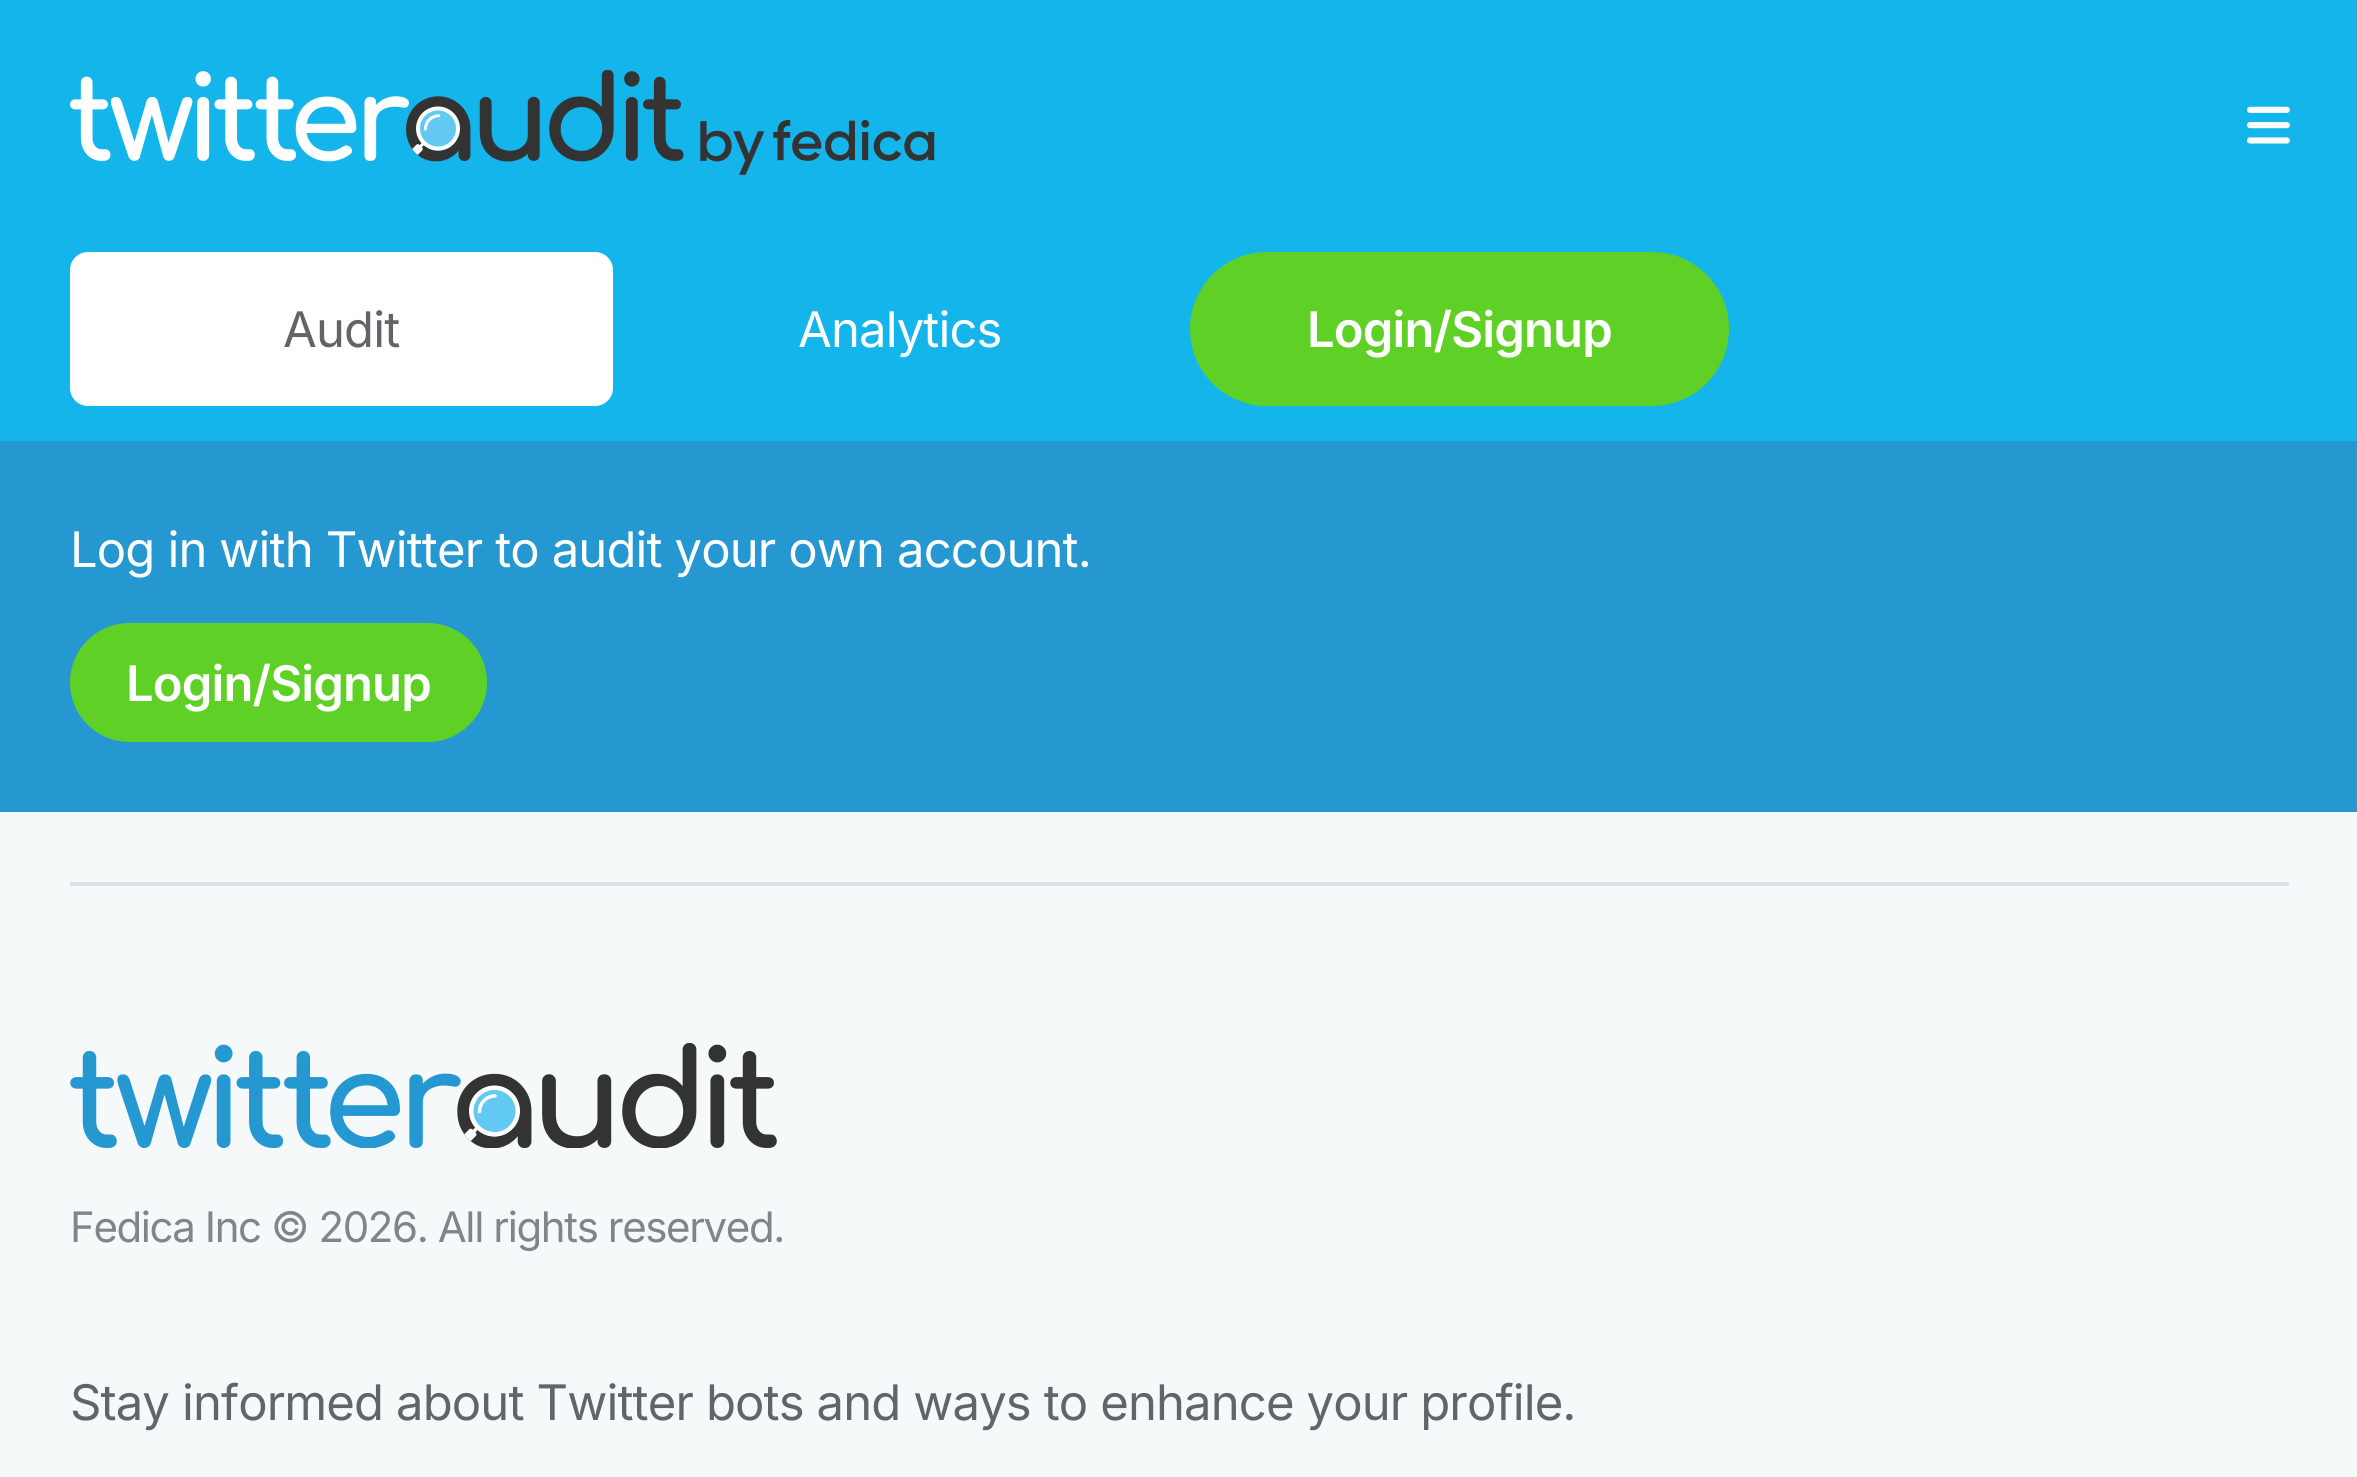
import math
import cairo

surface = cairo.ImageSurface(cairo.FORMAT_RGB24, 2357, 1477)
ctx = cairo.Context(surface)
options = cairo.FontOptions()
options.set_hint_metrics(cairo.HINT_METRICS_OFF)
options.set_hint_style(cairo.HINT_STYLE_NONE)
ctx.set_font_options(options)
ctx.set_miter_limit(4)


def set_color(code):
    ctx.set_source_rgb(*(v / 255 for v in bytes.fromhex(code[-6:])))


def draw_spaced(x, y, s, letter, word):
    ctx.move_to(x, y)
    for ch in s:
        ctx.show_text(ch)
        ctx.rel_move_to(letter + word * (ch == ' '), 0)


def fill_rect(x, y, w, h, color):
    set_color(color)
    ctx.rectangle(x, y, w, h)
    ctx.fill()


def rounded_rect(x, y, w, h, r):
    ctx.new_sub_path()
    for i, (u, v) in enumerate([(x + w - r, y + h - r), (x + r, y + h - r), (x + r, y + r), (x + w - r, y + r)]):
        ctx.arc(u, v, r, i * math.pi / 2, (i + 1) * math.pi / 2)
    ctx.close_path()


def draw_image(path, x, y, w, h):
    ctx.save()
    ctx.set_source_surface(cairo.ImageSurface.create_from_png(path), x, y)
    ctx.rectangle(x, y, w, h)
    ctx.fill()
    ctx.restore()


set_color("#f5f9fa")
ctx.paint()
fill_rect(0, 0, 2357, 441, "#13b5eb")
draw_image("assets/img1.png", 70, 70, 865, 105)
draw_image("assets/img2.png", 2247, 106, 43, 38)
set_color("#ffffff")
rounded_rect(70, 252, 543, 154, 18)
ctx.fill()
ctx.select_font_face("Inter")
ctx.set_font_size(49)
set_color("#616569")
draw_spaced(283, 347, "Audit", -0.88, 0)
set_color("#ffffff")
draw_spaced(798, 347, "Analytics", -0.88, 0)
set_color("#5fd126")
rounded_rect(1190, 252, 539, 154, 77)
ctx.fill()
ctx.select_font_face("Inter SemiBold")
set_color("#ffffff")
draw_spaced(1307, 347, "Login/Signup", -0.88, 0)
fill_rect(0, 441, 2357, 371, "#2698d1")
ctx.select_font_face("Inter")
set_color("#ffffff")
draw_spaced(70, 567, "Log in with Twitter to audit your own account.", -0.88, 0)
set_color("#5fd126")
rounded_rect(70, 623, 417, 119, 59.5)
ctx.fill()
ctx.select_font_face("Inter SemiBold")
set_color("#ffffff")
draw_spaced(126, 701, "Login/Signup", -0.88, 0)
fill_rect(70, 882, 2219, 4, "#dce1e5")
draw_image("assets/img3.png", 70, 1043, 707, 105)
ctx.select_font_face("Inter")
ctx.set_font_size(42)
set_color("#818589")
draw_spaced(70, 1242, "Fedica Inc © 2026. All rights reserved.", -1.4, 0)
ctx.set_font_size(49)
set_color("#616569")
draw_spaced(70, 1420, "Stay informed about Twitter bots and ways to enhance your profile.", -0.88, 0)
surface.write_to_png("output.png")
